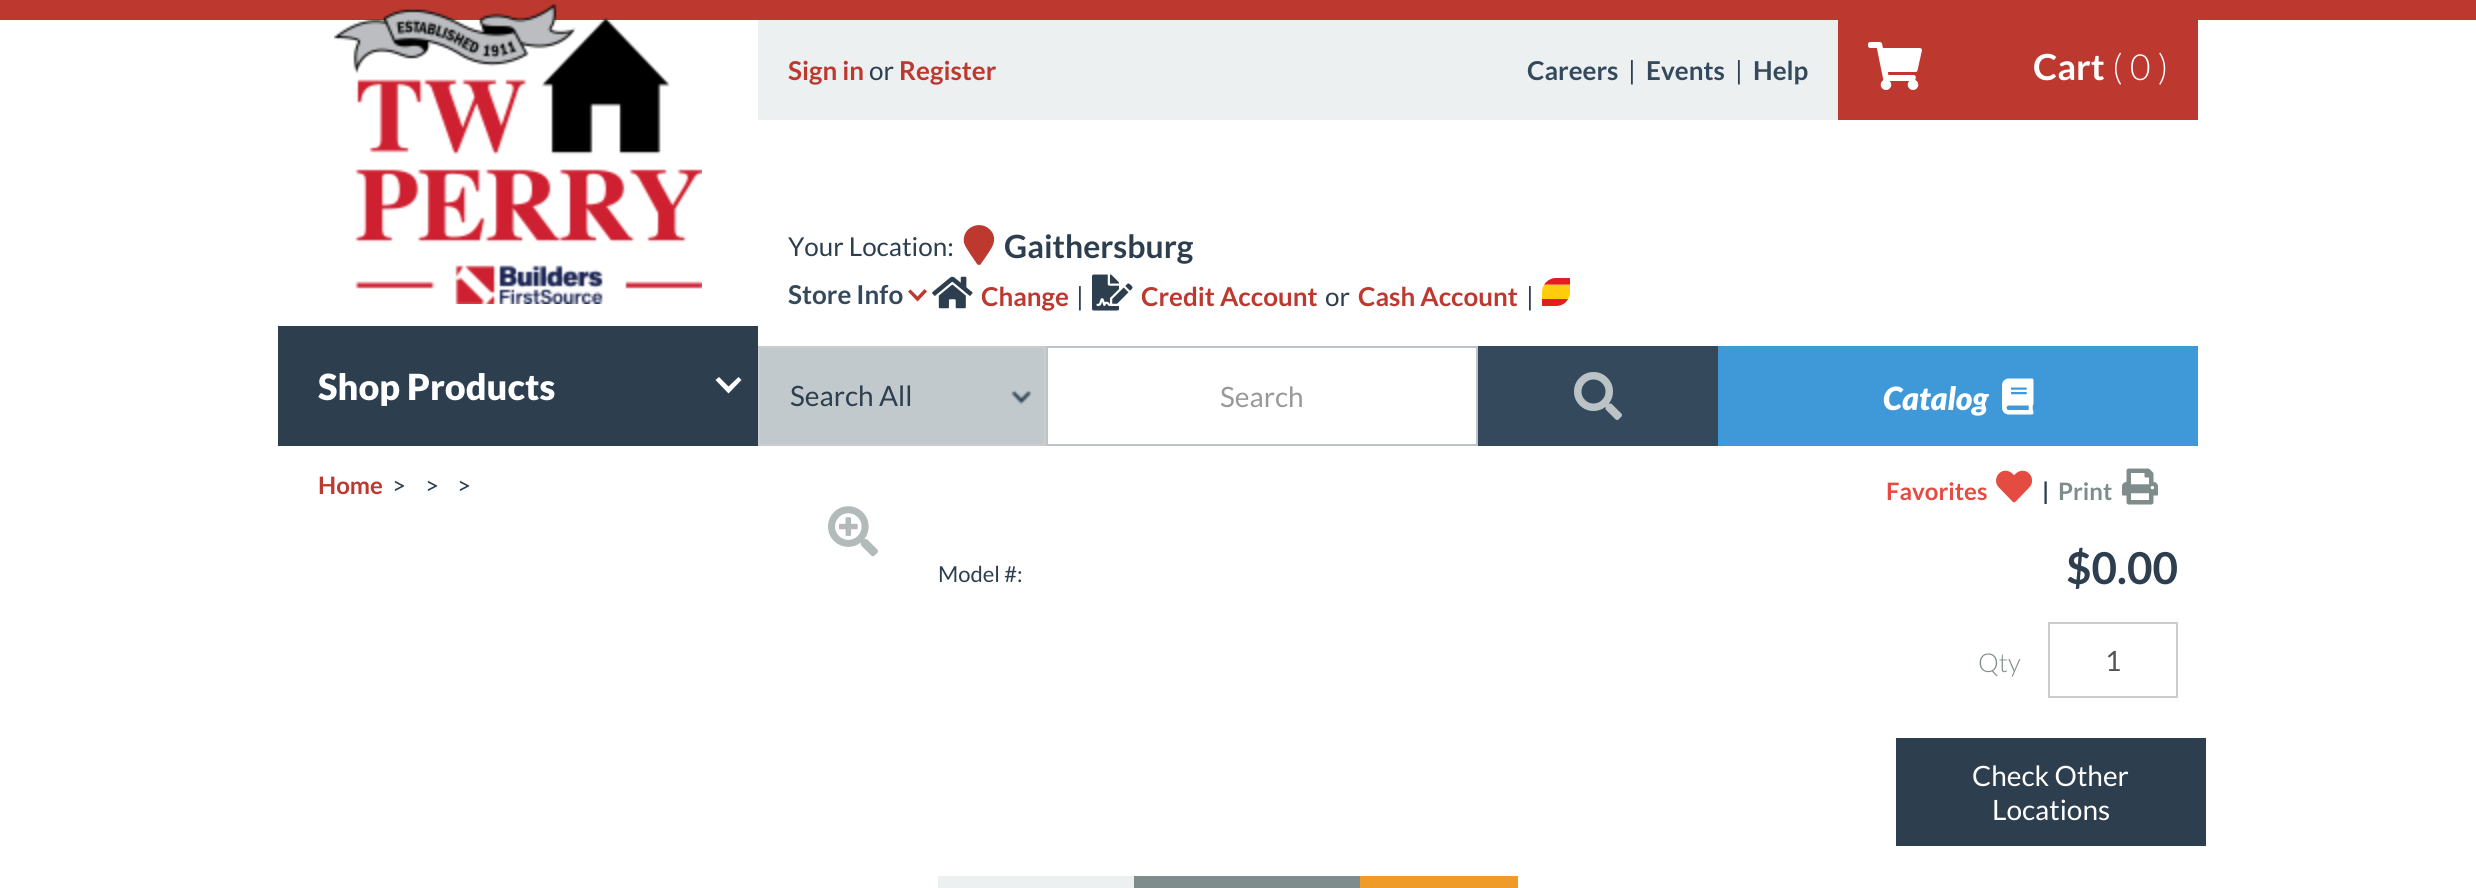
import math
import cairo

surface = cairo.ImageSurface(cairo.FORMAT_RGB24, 2476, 888)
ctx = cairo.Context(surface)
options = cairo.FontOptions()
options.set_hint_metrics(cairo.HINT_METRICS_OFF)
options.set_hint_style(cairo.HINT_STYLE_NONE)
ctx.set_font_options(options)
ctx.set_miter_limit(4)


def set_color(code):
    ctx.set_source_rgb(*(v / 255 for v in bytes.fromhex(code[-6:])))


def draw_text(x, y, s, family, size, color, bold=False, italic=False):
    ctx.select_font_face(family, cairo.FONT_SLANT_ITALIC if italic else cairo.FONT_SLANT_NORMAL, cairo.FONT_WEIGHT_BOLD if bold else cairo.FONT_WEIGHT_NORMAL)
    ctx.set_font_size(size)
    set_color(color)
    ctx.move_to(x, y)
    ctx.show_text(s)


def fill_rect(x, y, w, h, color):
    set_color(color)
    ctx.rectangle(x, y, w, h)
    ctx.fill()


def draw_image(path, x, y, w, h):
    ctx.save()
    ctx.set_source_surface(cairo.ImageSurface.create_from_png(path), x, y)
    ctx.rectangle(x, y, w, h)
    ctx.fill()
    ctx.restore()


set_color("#ffffff")
ctx.paint()
fill_rect(0, 0, 2476, 20, "#bd3930")
draw_image("assets/img1.png", 334, 4, 368, 300)
fill_rect(278, 326, 480, 120, "#2d3e4f")
draw_text(318, 400, "Shop Products", "Lato Black", 36, "#ffffff")
ctx.new_path()
ctx.move_to(738.5, 377)
ctx.line_to(728.5, 386.5)
ctx.line_to(719, 377)
ctx.line_to(715.5, 380)
ctx.line_to(728.5, 393.5)
ctx.line_to(741.5, 380)
ctx.close_path()
ctx.fill()
fill_rect(758, 20, 1080, 100, "#ecf0f1")
draw_text(788, 80, "Sign in", "Lato", 26, "#bd3930", bold=True)
draw_text(869, 80, "or", "Lato", 26, "#2d3e4f")
draw_text(899, 80, "Register", "Lato", 26, "#bd3930", bold=True)
draw_text(1527, 80, "Careers", "Lato", 26, "#35495d", bold=True)
draw_text(1628, 80, "|", "Lato", 26, "#2d3e4f")
draw_text(1646, 80, "Events", "Lato", 26, "#35495d", bold=True)
draw_text(1735, 80, "|", "Lato", 26, "#2d3e4f")
draw_text(1753, 80, "Help", "Lato", 26, "#35495d", bold=True)
fill_rect(1838, 20, 360, 100, "#bd3930")
draw_image("assets/img2.png", 1868, 42, 54, 48)
draw_text(2033, 80, "Cart", "Lato", 36, "#ffffff", bold=True)
draw_text(2112, 80, "( 0 )", "Lato Light", 36, "#ffffff")
draw_text(788, 256, "Your Location:", "Lato", 26, "#2d3e4f")
set_color("#bd3930")
ctx.new_path()
ctx.move_to(977, 264)
ctx.curve_to(974, 259, 966, 249, 964, 243)
ctx.curve_to(961, 227, 982, 218, 992, 232)
ctx.curve_to(998, 242, 990, 250, 985, 258)
ctx.line_to(980, 265)
ctx.curve_to(979, 265, 978, 265, 977, 264)
ctx.close_path()
ctx.fill()
draw_text(1004, 258, "Gaithersburg", "Lato", 32, "#2d3e4f", bold=True)
draw_text(788, 304, "Store Info", "Lato", 26, "#35495d", bold=True)
set_color("#bd3930")
ctx.new_path()
ctx.move_to(924.5, 289)
ctx.line_to(917.5, 296.5)
ctx.line_to(910.5, 289.5)
ctx.line_to(908, 291.5)
ctx.line_to(917.5, 301.5)
ctx.line_to(927, 291.5)
ctx.close_path()
ctx.fill()
draw_image("assets/img3.png", 932, 276, 41, 33)
draw_text(981, 306, "Change", "Lato", 26, "#bd3930", bold=True)
draw_text(1076, 306, "|", "Lato", 26, "#2d3e4f")
draw_image("assets/img4.png", 1092, 274, 41, 37)
draw_text(1141, 306, "Credit Account", "Lato", 26, "#bd3930", bold=True)
draw_text(1325, 306, "or", "Lato", 26, "#2d3e4f")
draw_text(1358, 306, "Cash Account", "Lato", 26, "#bd3930", bold=True)
draw_text(1526, 306, "|", "Lato", 26, "#2d3e4f")
draw_image("assets/img5.png", 1542, 278, 28, 28)
fill_rect(760, 348, 284, 96, "#c2c9cc")
draw_image("assets/img6.png", 1011, 390, 21, 15)
ctx.rectangle(759, 347, 286, 98)
set_color("#cccccc")
ctx.stroke()
draw_text(790, 406, "Search All", "Lato", 28, "#2d3e4f")
ctx.rectangle(1047, 347, 430, 98)
set_color("#bbc3c6")
ctx.stroke()
draw_text(1220, 407, "Search", "Lato", 28, "#999999")
fill_rect(1478, 346, 240, 100, "#35495d")
draw_image("assets/img7.png", 1574, 372, 48, 48)
fill_rect(1718, 346, 480, 100, "#3f99d9")
draw_text(1883, 410, "Catalog", "Lato Black", 32, "#ffffff", italic=True)
draw_image("assets/img8.png", 2002, 378, 32, 37)
draw_text(318, 494, "Home", "Lato", 24, "#bd3930", bold=True)
draw_text(392, 494, ">", "Lato", 24, "#2d3e4f")
draw_text(425, 494, ">", "Lato", 24, "#2d3e4f")
draw_text(457, 494, ">", "Lato", 24, "#2d3e4f")
draw_text(1886, 500, "Favorites", "Lato", 24, "#e44b41", bold=True)
draw_image("assets/img9.png", 1996, 470, 37, 33)
draw_text(2042, 500, "|", "Lato", 24, "#2d3e4f", bold=True)
draw_text(2058, 500, "Print", "Lato", 24, "#7f8c8c", bold=True)
draw_image("assets/img10.png", 2122, 468, 36, 37)
draw_image("assets/img11.png", 828, 506, 50, 51)
draw_text(938, 582, "Model #:", "Lato", 22, "#2d3e4f")
draw_text(2066, 584, "$0.00", "Lato", 44, "#2d3e4f", bold=True)
draw_text(1978, 672, "Qty", "Lato Light", 26, "#7f8c8c")
ctx.rectangle(2049, 623, 128, 74)
set_color("#cccccc")
ctx.stroke()
draw_text(2105, 671, "1", "Lato", 28, "#555555")
fill_rect(1896, 738, 310, 108, "#2d3e4f")
draw_text(1972, 786, "Check Other", "Lato", 28, "#ffffff")
draw_text(1992, 820, "Locations", "Lato", 28, "#ffffff")
fill_rect(938, 876, 196, 12, "#ecf0f1")
fill_rect(1134, 876, 226, 12, "#7f8c8c")
fill_rect(1360, 876, 158, 12, "#ef9b29")
surface.write_to_png("output.png")
